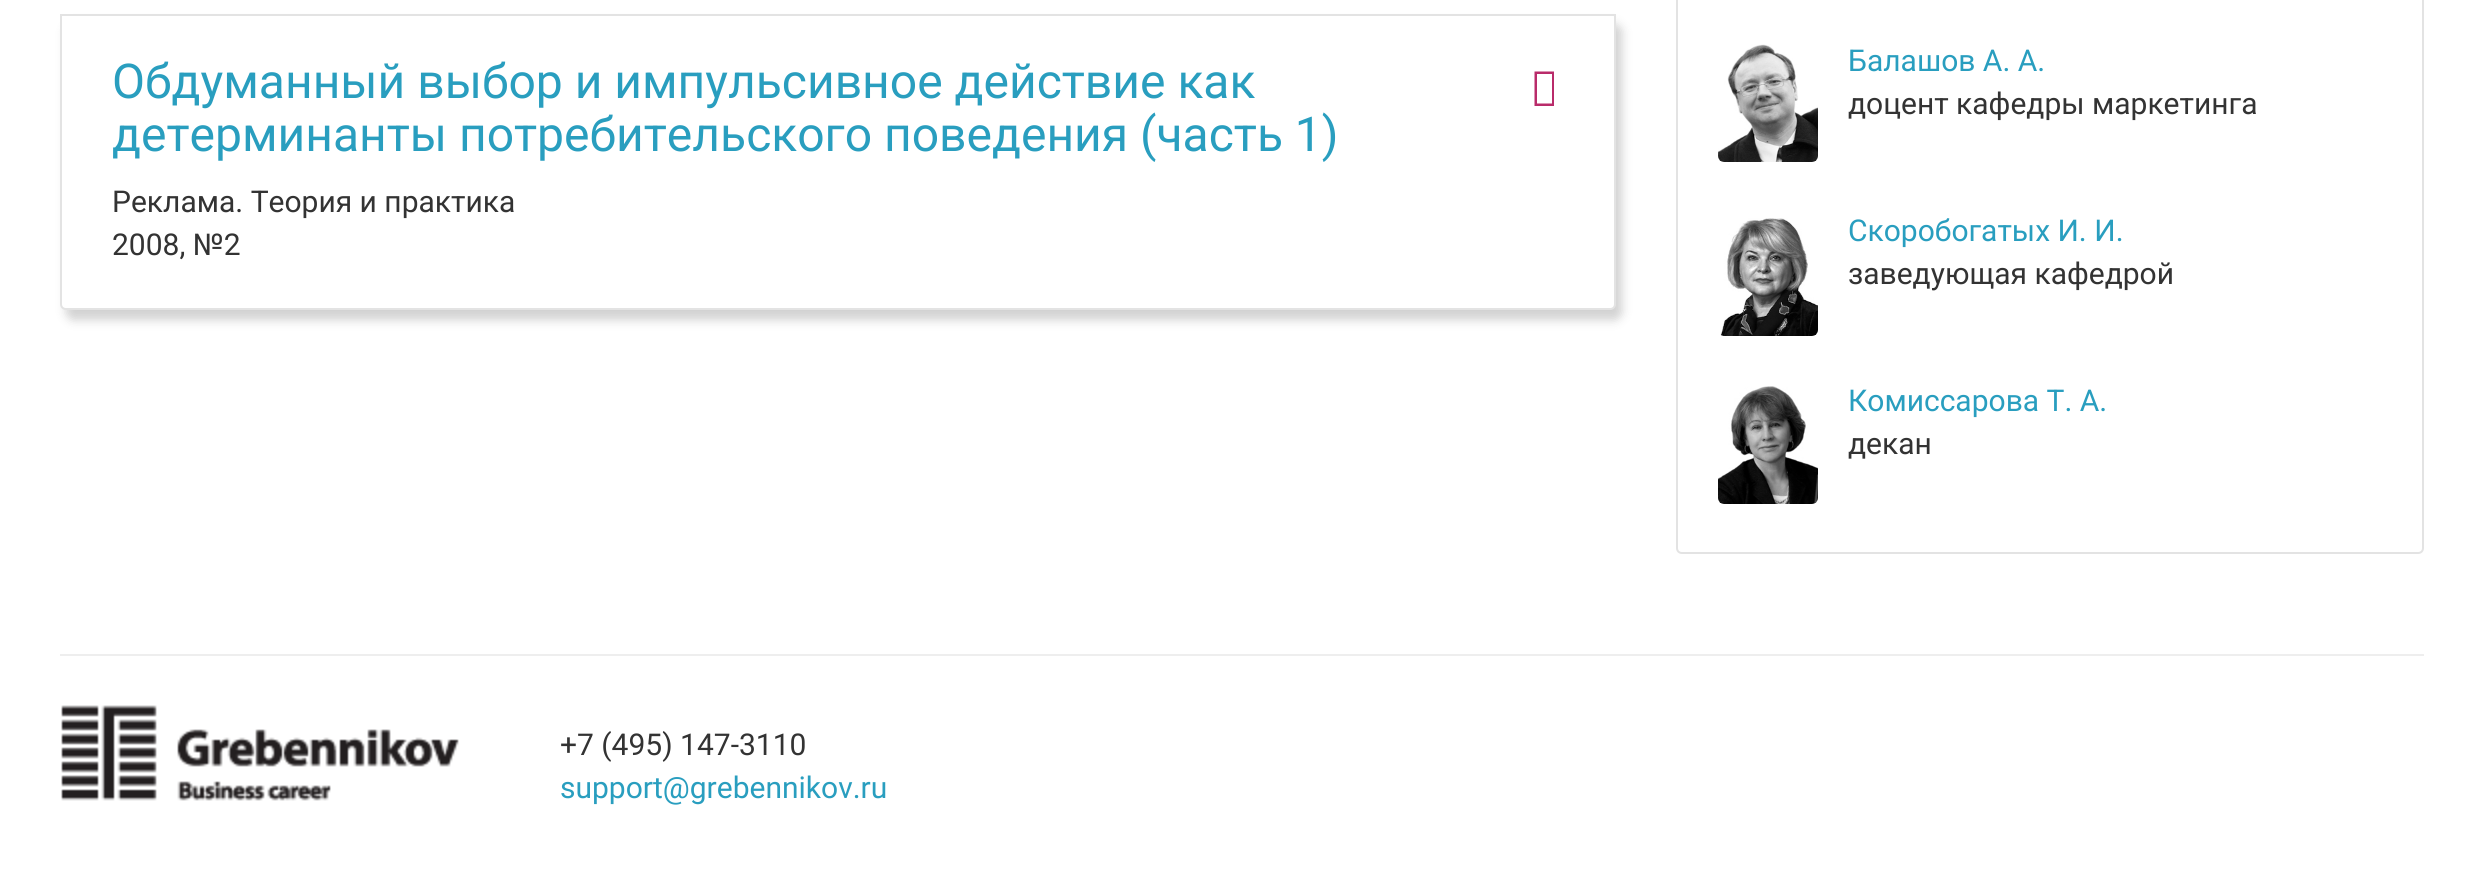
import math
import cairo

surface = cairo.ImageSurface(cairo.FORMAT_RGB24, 2484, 869)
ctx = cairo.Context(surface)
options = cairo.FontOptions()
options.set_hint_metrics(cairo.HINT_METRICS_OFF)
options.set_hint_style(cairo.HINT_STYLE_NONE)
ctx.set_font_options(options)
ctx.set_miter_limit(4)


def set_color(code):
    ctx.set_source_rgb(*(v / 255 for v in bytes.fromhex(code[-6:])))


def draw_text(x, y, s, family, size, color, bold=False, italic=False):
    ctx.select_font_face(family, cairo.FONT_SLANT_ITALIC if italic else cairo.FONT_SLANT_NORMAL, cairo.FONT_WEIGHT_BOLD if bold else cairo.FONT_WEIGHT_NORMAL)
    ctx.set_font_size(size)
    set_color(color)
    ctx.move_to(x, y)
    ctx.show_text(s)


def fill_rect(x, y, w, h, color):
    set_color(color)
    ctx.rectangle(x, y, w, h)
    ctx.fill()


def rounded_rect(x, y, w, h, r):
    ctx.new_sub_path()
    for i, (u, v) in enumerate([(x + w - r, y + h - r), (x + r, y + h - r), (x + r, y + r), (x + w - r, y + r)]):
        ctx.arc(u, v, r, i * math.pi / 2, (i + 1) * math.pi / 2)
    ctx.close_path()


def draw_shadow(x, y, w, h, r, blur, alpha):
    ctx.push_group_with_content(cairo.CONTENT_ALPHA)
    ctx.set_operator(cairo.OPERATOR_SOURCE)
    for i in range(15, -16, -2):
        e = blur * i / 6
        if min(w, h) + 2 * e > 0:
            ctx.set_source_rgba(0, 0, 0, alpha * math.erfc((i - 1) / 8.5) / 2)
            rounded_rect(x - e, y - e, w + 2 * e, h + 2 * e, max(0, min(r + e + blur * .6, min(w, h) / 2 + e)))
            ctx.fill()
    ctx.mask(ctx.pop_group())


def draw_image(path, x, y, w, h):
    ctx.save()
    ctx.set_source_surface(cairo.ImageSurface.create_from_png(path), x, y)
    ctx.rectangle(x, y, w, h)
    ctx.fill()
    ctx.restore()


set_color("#ffffff")
ctx.paint()
set_color("#000000")
draw_shadow(66, 24, 1556, 296, 8, 5, 0.18)
set_color("#ffffff")
rounded_rect(60, 14, 1556, 296, 8)
ctx.fill()
ctx.new_path()
ctx.move_to(61, 15)
ctx.line_to(1615, 15)
ctx.line_to(1615, 304)
ctx.curve_to(1615, 307, 1613, 309, 1610, 309)
ctx.line_to(66, 309)
ctx.curve_to(63, 309, 61, 307, 61, 304)
ctx.close_path()
set_color("#e3e3e3")
ctx.stroke()
draw_text(112, 98, "Обдуманный выбор и импульсивное действие как", "Roboto", 48, "#299ebf")
draw_text(112, 151, "детерминанты потребительского поведения (часть 1)", "Roboto", 48, "#299ebf")
set_color("#b92b6a")
ctx.new_path()
ctx.move_to(1534.5, 106)
ctx.line_to(1534.5, 71.5)
ctx.line_to(1554, 71.5)
ctx.line_to(1554, 106)
ctx.close_path()
ctx.move_to(1537, 103.5)
ctx.line_to(1552, 103.5)
ctx.line_to(1552, 74)
ctx.line_to(1537, 74)
ctx.close_path()
ctx.fill()
draw_text(112, 212, "Реклама. Теория и практика", "Roboto", 30, "#333333")
draw_text(112, 255, "2008, №2", "Roboto", 30, "#333333")
ctx.new_path()
ctx.move_to(1677, -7)
ctx.line_to(2423, -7)
ctx.line_to(2423, 548)
ctx.curve_to(2423, 551, 2421, 553, 2418, 553)
ctx.line_to(1682, 553)
ctx.curve_to(1679, 553, 1677, 551, 1677, 548)
ctx.close_path()
set_color("#e3e3e3")
ctx.stroke()
draw_image("assets/img1.png", 1718, 44, 100, 118)
draw_text(1848, 71, "Балашов А. А.", "Roboto", 30, "#299ebf")
draw_text(1848, 114, "доцент кафедры маркетинга", "Roboto", 30, "#333333")
draw_image("assets/img2.png", 1720, 218, 98, 118)
draw_text(1848, 241, "Скоробогатых И. И.", "Roboto", 30, "#299ebf")
draw_text(1848, 284, "заведующая кафедрой", "Roboto", 30, "#333333")
draw_image("assets/img3.png", 1718, 386, 100, 118)
draw_text(1848, 411, "Комиссарова Т. А.", "Roboto", 30, "#299ebf")
draw_text(1848, 454, "декан", "Roboto", 30, "#333333")
fill_rect(60, 654, 2364, 2, "#eeeeee")
draw_image("assets/img4.png", 61, 705, 398, 96)
draw_text(560, 755, "+7 (495) 147-3110", "Roboto", 30, "#333333")
draw_text(560, 798, "support@grebennikov.ru", "Roboto", 30, "#299ebf")
surface.write_to_png("output.png")
